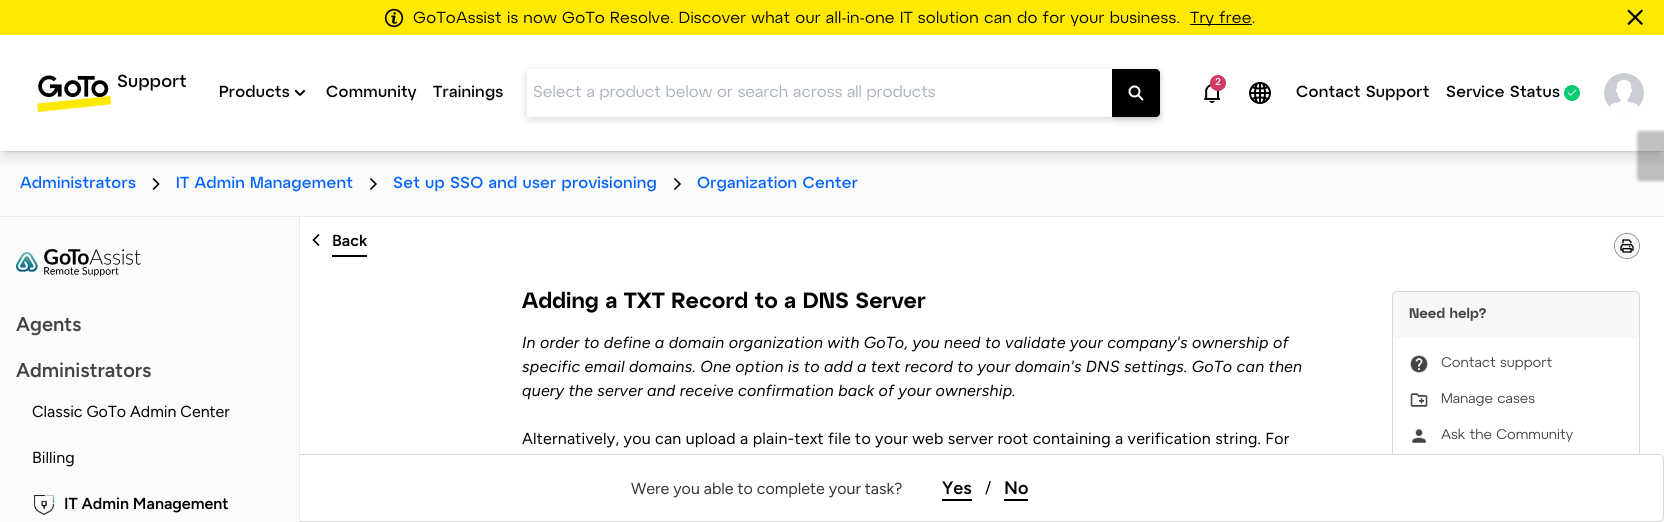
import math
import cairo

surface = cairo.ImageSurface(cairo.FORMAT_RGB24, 1664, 522)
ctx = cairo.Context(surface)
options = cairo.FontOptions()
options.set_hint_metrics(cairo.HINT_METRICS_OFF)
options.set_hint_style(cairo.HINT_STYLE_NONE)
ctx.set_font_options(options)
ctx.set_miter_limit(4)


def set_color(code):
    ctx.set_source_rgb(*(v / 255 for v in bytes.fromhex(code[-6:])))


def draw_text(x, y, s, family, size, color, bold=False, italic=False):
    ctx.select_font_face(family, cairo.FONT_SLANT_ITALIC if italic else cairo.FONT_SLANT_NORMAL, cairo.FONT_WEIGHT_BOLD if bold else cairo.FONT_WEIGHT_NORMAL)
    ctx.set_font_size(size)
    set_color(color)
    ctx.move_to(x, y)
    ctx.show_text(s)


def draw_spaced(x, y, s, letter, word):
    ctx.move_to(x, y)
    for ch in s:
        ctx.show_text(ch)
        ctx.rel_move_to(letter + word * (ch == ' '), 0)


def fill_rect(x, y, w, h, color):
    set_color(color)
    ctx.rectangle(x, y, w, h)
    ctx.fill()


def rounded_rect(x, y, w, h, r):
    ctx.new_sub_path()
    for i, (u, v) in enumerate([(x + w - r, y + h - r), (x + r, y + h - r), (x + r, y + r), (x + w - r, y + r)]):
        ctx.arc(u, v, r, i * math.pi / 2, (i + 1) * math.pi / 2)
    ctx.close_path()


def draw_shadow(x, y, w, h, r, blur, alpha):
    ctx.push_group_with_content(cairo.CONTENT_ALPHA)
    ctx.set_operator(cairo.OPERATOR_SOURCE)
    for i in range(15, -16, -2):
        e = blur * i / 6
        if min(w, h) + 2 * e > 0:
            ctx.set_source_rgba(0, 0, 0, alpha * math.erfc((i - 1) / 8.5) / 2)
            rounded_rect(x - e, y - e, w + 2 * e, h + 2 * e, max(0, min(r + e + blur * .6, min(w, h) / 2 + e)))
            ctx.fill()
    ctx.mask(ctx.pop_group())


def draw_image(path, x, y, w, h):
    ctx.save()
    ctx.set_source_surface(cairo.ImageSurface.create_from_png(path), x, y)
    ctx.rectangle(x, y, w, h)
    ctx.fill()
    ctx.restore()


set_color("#ffffff")
ctx.paint()
fill_rect(0, 0, 1664, 35, "#ffe900")
draw_image("assets/img1.png", 384, 8, 20, 20)
ctx.select_font_face("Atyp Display")
ctx.set_font_size(16)
set_color("#000000")
draw_spaced(413, 23, "GoToAssist is now GoTo Resolve. Discover what our all-in-one IT solution can do for your business.", 0.24, 0)
fill_rect(1190, 24, 62, 1, "#000000")
draw_spaced(1190, 23, "Try free.", 0.24, 0)
draw_image("assets/img2.png", 1627, 9, 16, 16)
fill_rect(0, 152, 1664, 64, "#fbfbfb")
fill_rect(0, 151, 1664, 1, "#ebebeb")
ctx.save()
ctx.rectangle(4, 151, 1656, 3)
ctx.clip()
set_color("#000000")
draw_shadow(4, 43, 1656, 108, 0, 3, 0.1)
ctx.restore()
draw_image("assets/img9.png", 152, 178, 8, 12)
draw_image("assets/img10.png", 370, 178, 7, 12)
draw_image("assets/img11.png", 674, 178, 7, 12)
ctx.save()
ctx.rectangle(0, 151, 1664, 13)
ctx.clip()
set_color("#000000")
draw_shadow(3, 48, 1658, 110, 0, 7.5, 0.1)
ctx.restore()
draw_image("assets/img3.png", 37, 75, 75, 37)
ctx.select_font_face("Atyp Display Medium")
ctx.set_font_size(17.5)
set_color("#000000")
draw_spaced(117, 87, "Support", 0.25, 0)
ctx.set_font_size(16)
draw_spaced(219, 97, "Products", 0.24, 0)
ctx.new_path()
ctx.move_to(304, 91)
ctx.line_to(300, 95)
ctx.line_to(296, 91)
ctx.set_line_cap(cairo.LINE_CAP_SQUARE)
ctx.set_line_join(cairo.LINE_JOIN_BEVEL)
ctx.stroke()
draw_spaced(326, 97, "Community", 0.24, 0)
draw_spaced(433, 97, "Trainings", 0.24, 0)
set_color("#000000")
draw_shadow(527, 71, 633, 48, 4, 4, 0.16)
draw_shadow(1114, 73, 44, 44, 2, 2, 0.1)
draw_shadow(1113, 74, 46, 46, 3, 3, 0.1)
fill_rect(527, 69, 585, 48, "#ffffff")
draw_text(533, 97, "Select a product below or search across all products", "Atyp Display", 16, "#a6aeba")
set_color("#000000")
ctx.new_path()
ctx.move_to(1112, 69)
ctx.line_to(1156, 69)
ctx.curve_to(1158, 69, 1160, 71, 1160, 73)
ctx.line_to(1160, 113)
ctx.curve_to(1160, 115, 1158, 117, 1156, 117)
ctx.line_to(1112, 117)
ctx.close_path()
ctx.fill()
draw_image("assets/img4.png", 1128, 85, 16, 16)
draw_image("assets/img5.png", 1204, 84, 16, 19)
set_color("#d33a61")
ctx.arc(1218, 83, 8, 0, 2 * math.pi)
ctx.fill()
ctx.select_font_face("Atyp Display Medium")
ctx.set_font_size(10)
set_color("#ffffff")
draw_spaced(1215, 85, "2", 0.24, 0)
draw_image("assets/img6.png", 1604, 73, 40, 40)
draw_image("assets/img7.png", 1249, 82, 22, 22)
ctx.set_font_size(16)
set_color("#000000")
draw_spaced(1296, 97, "Contact Support", 0.24, 0)
draw_spaced(1446, 97, "Service Status", 0.24, 0)
draw_image("assets/img8.png", 1564, 85, 16, 16)
set_color("#000000")
draw_shadow(1637, 131, 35, 50, 3, 1.5, 0.25)
fill_rect(0, 216, 1664, 1, "#ebebeb")
set_color("#0062ff")
draw_spaced(20, 188, "Administrators", 0.24, 0)
draw_spaced(176, 188, "IT Admin Management", 0.24, 0)
draw_spaced(393, 188, "Set up SSO and user provisioning", 0.24, 0)
draw_spaced(697, 188, "Organization Center", 0.24, 0)
draw_image("assets/img12.png", 312, 234, 8, 12)
fill_rect(332, 255, 35, 2, "#000000")
draw_text(332, 246, "Back", "Figtree SemiBold", 16, "#000000")
rounded_rect(1392.5, 291.5, 247, 171, 4.5)
set_color("#d8d8d8")
ctx.set_line_width(1)
ctx.set_line_cap(cairo.LINE_CAP_BUTT)
ctx.set_line_join(cairo.LINE_JOIN_MITER)
ctx.stroke()
fill_rect(1392, 454, 248, 9, "#ffffff")
rounded_rect(0.5, 454.5, 1663, 67, 4.5)
set_color("#d8d8d8")
ctx.stroke()
fill_rect(0, 217, 299, 305, "#fbfbfb")
fill_rect(299, 217, 1, 305, "#ebebeb")
draw_image("assets/img13.png", 16, 249, 125, 28)
draw_text(16, 331, "Agents", "Figtree SemiBold", 20, "#444444")
draw_text(16, 377, "Administrators", "Figtree SemiBold", 20, "#444444")
draw_text(32, 417, "Classic GoTo Admin Center", "Figtree", 16, "#000000")
draw_text(32, 463, "Billing", "Figtree", 16, "#000000")
draw_image("assets/img14.png", 34, 495, 21, 21)
draw_text(64, 509, "IT Admin Management", "Figtree SemiBold", 16, "#000000")
draw_text(522, 308, "Adding a TXT Record to a DNS Server", "Atyp Display SemiBold", 22, "#000000")
ctx.select_font_face("Figtree", cairo.FONT_SLANT_ITALIC)
ctx.set_font_size(16)
draw_spaced(522, 348, "In order to define a domain organization with GoTo, you need to validate your company's ownership of", 0.24, 0)
draw_spaced(522, 372, "specific email domains. One option is to add a text record to your domain's DNS settings. GoTo can then", 0.24, 0)
draw_spaced(522, 396, "query the server and receive confirmation back of your ownership.", 0.24, 0)
ctx.select_font_face("Figtree")
draw_spaced(522, 444, "Alternatively, you can upload a plain-text file to your web server root containing a verification string. For", 0.24, 0)
draw_text(631, 494, "Were you able to complete your task?", "Figtree", 16, "#32363a")
draw_text(942, 494, "Yes", "Figtree SemiBold", 18, "#000000")
fill_rect(942, 499, 30, 2, "#000000")
draw_text(985, 493, "/", "Figtree", 16, "#000000")
draw_text(1004, 494, "No", "Figtree SemiBold", 18, "#000000")
fill_rect(1004, 499, 24, 2, "#000000")
draw_image("assets/img15.png", 1614, 233, 26, 26)
set_color("#f7f7f7")
rounded_rect(1393, 292, 246, 46, 5)
ctx.fill()
draw_text(1409, 318, "Need help?", "Atyp Display SemiBold", 14, "#444444")
draw_image("assets/img16.png", 1410, 355, 18, 18)
draw_text(1441, 367, "Contact support", "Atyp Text", 14, "#444444")
draw_image("assets/img17.png", 1410, 393, 18, 14)
draw_text(1441, 403, "Manage cases", "Atyp Text", 14, "#444444")
draw_image("assets/img18.png", 1412, 429, 14, 14)
draw_text(1441, 439, "Ask the Community", "Atyp Text", 14, "#444444")
surface.write_to_png("output.png")
